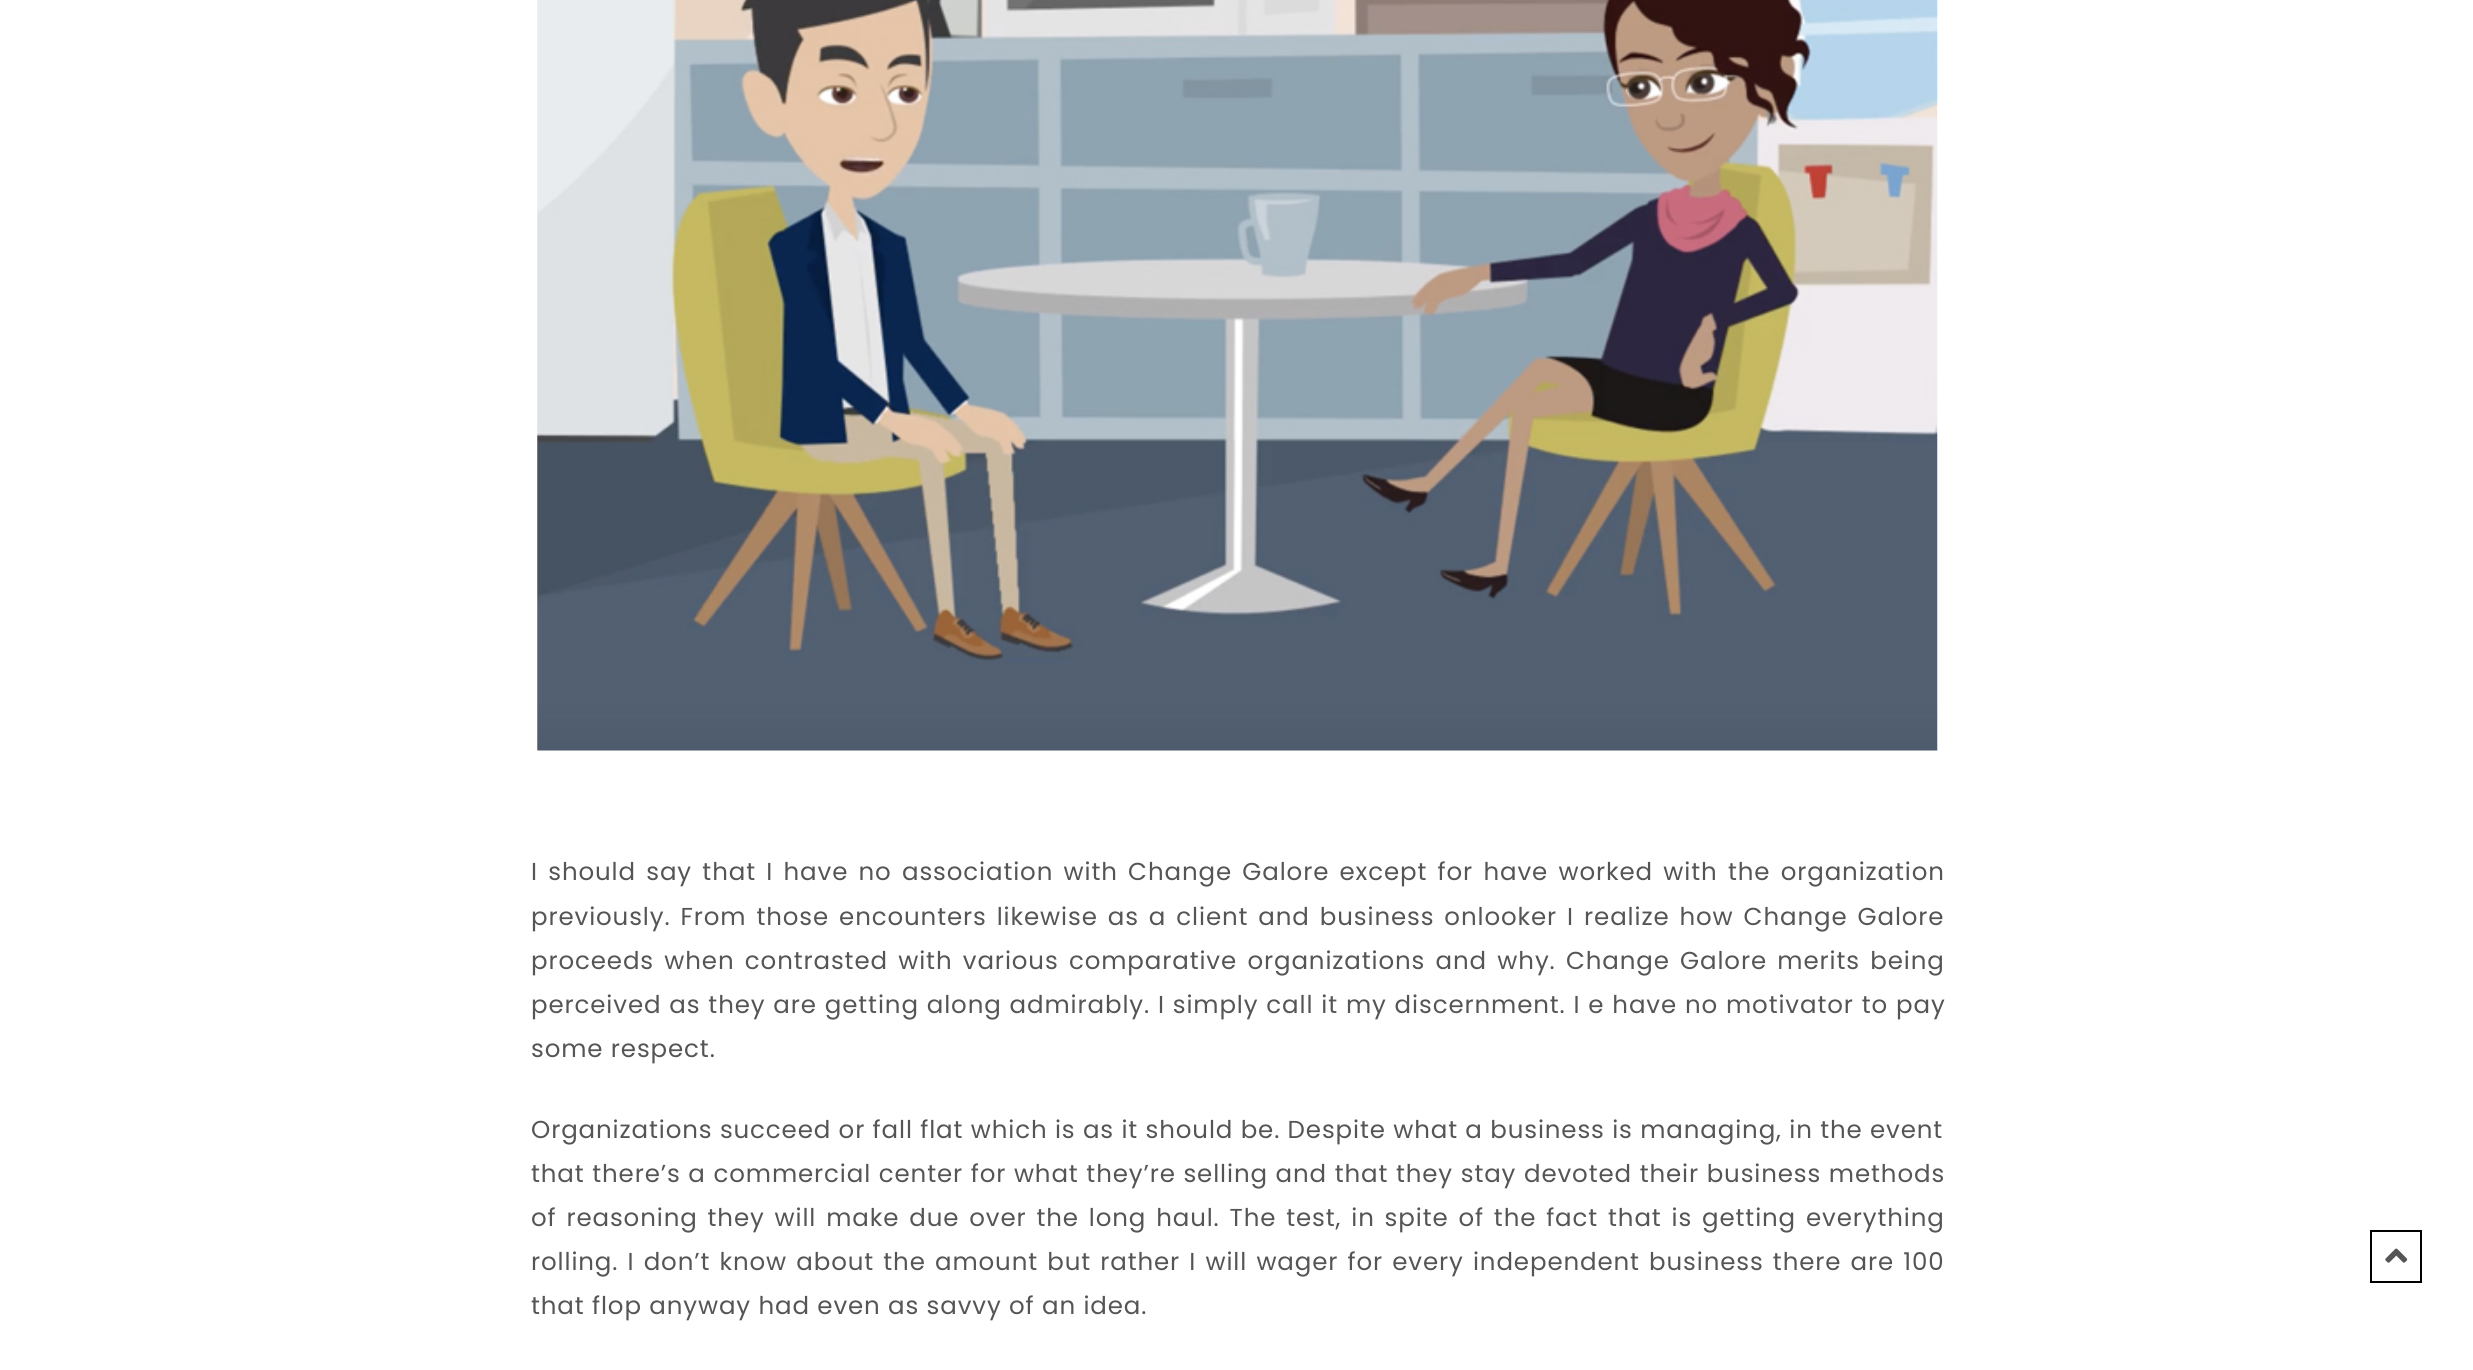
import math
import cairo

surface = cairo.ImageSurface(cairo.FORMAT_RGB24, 2473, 1370)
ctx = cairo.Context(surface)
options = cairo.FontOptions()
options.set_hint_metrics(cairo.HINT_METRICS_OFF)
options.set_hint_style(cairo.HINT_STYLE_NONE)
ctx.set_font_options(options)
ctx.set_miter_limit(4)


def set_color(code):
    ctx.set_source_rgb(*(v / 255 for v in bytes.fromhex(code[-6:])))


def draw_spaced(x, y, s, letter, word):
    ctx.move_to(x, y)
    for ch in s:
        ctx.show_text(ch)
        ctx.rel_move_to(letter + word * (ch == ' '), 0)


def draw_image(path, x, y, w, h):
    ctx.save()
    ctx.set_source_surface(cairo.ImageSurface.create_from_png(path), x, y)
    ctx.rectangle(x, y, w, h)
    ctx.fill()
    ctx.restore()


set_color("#ffffff")
ctx.paint()
draw_image("assets/img1.png", 537, 0, 1401, 751)
ctx.select_font_face("Poppins")
ctx.set_font_size(24.5)
set_color("#555555")
draw_spaced(531, 880, "I should say that I have no association with Change Galore except for have worked with the organization", 0.88, 2.9)
draw_spaced(531, 925, "previously. From those encounters likewise as a client and business onlooker I realize how Change Galore", 0.88, 2.6)
draw_spaced(531, 969, "proceeds when contrasted with various comparative organizations and why. Change Galore merits being", 0.88, 2.9)
draw_spaced(531, 1013, "perceived as they are getting along admirably. I simply call it my discernment. I e have no motivator to pay", 0.88, 0.5)
draw_spaced(531, 1057, "some respect.", 0.88, 0)
draw_spaced(531, 1138, "Organizations succeed or fall flat which is as it should be. Despite what a business is managing, in the event", 0.88, 0)
draw_spaced(531, 1182, "that there’s a commercial center for what they’re selling and that they stay devoted their business methods", 0.88, 0.25)
draw_spaced(531, 1226, "of reasoning they will make due over the long haul. The test, in spite of the fact that is getting everything", 0.88, 2.5)
draw_spaced(531, 1270, "rolling. I don’t know about the amount but rather I will wager for every independent business there are 100", 0.88, 1.8)
draw_spaced(531, 1314, "that flop anyway had even as savvy of an idea.", 0.88, 0)
ctx.rectangle(2371, 1231, 50, 51)
set_color("#000000")
ctx.stroke()
draw_image("assets/img2.png", 2385, 1248, 23, 15)
surface.write_to_png("output.png")
